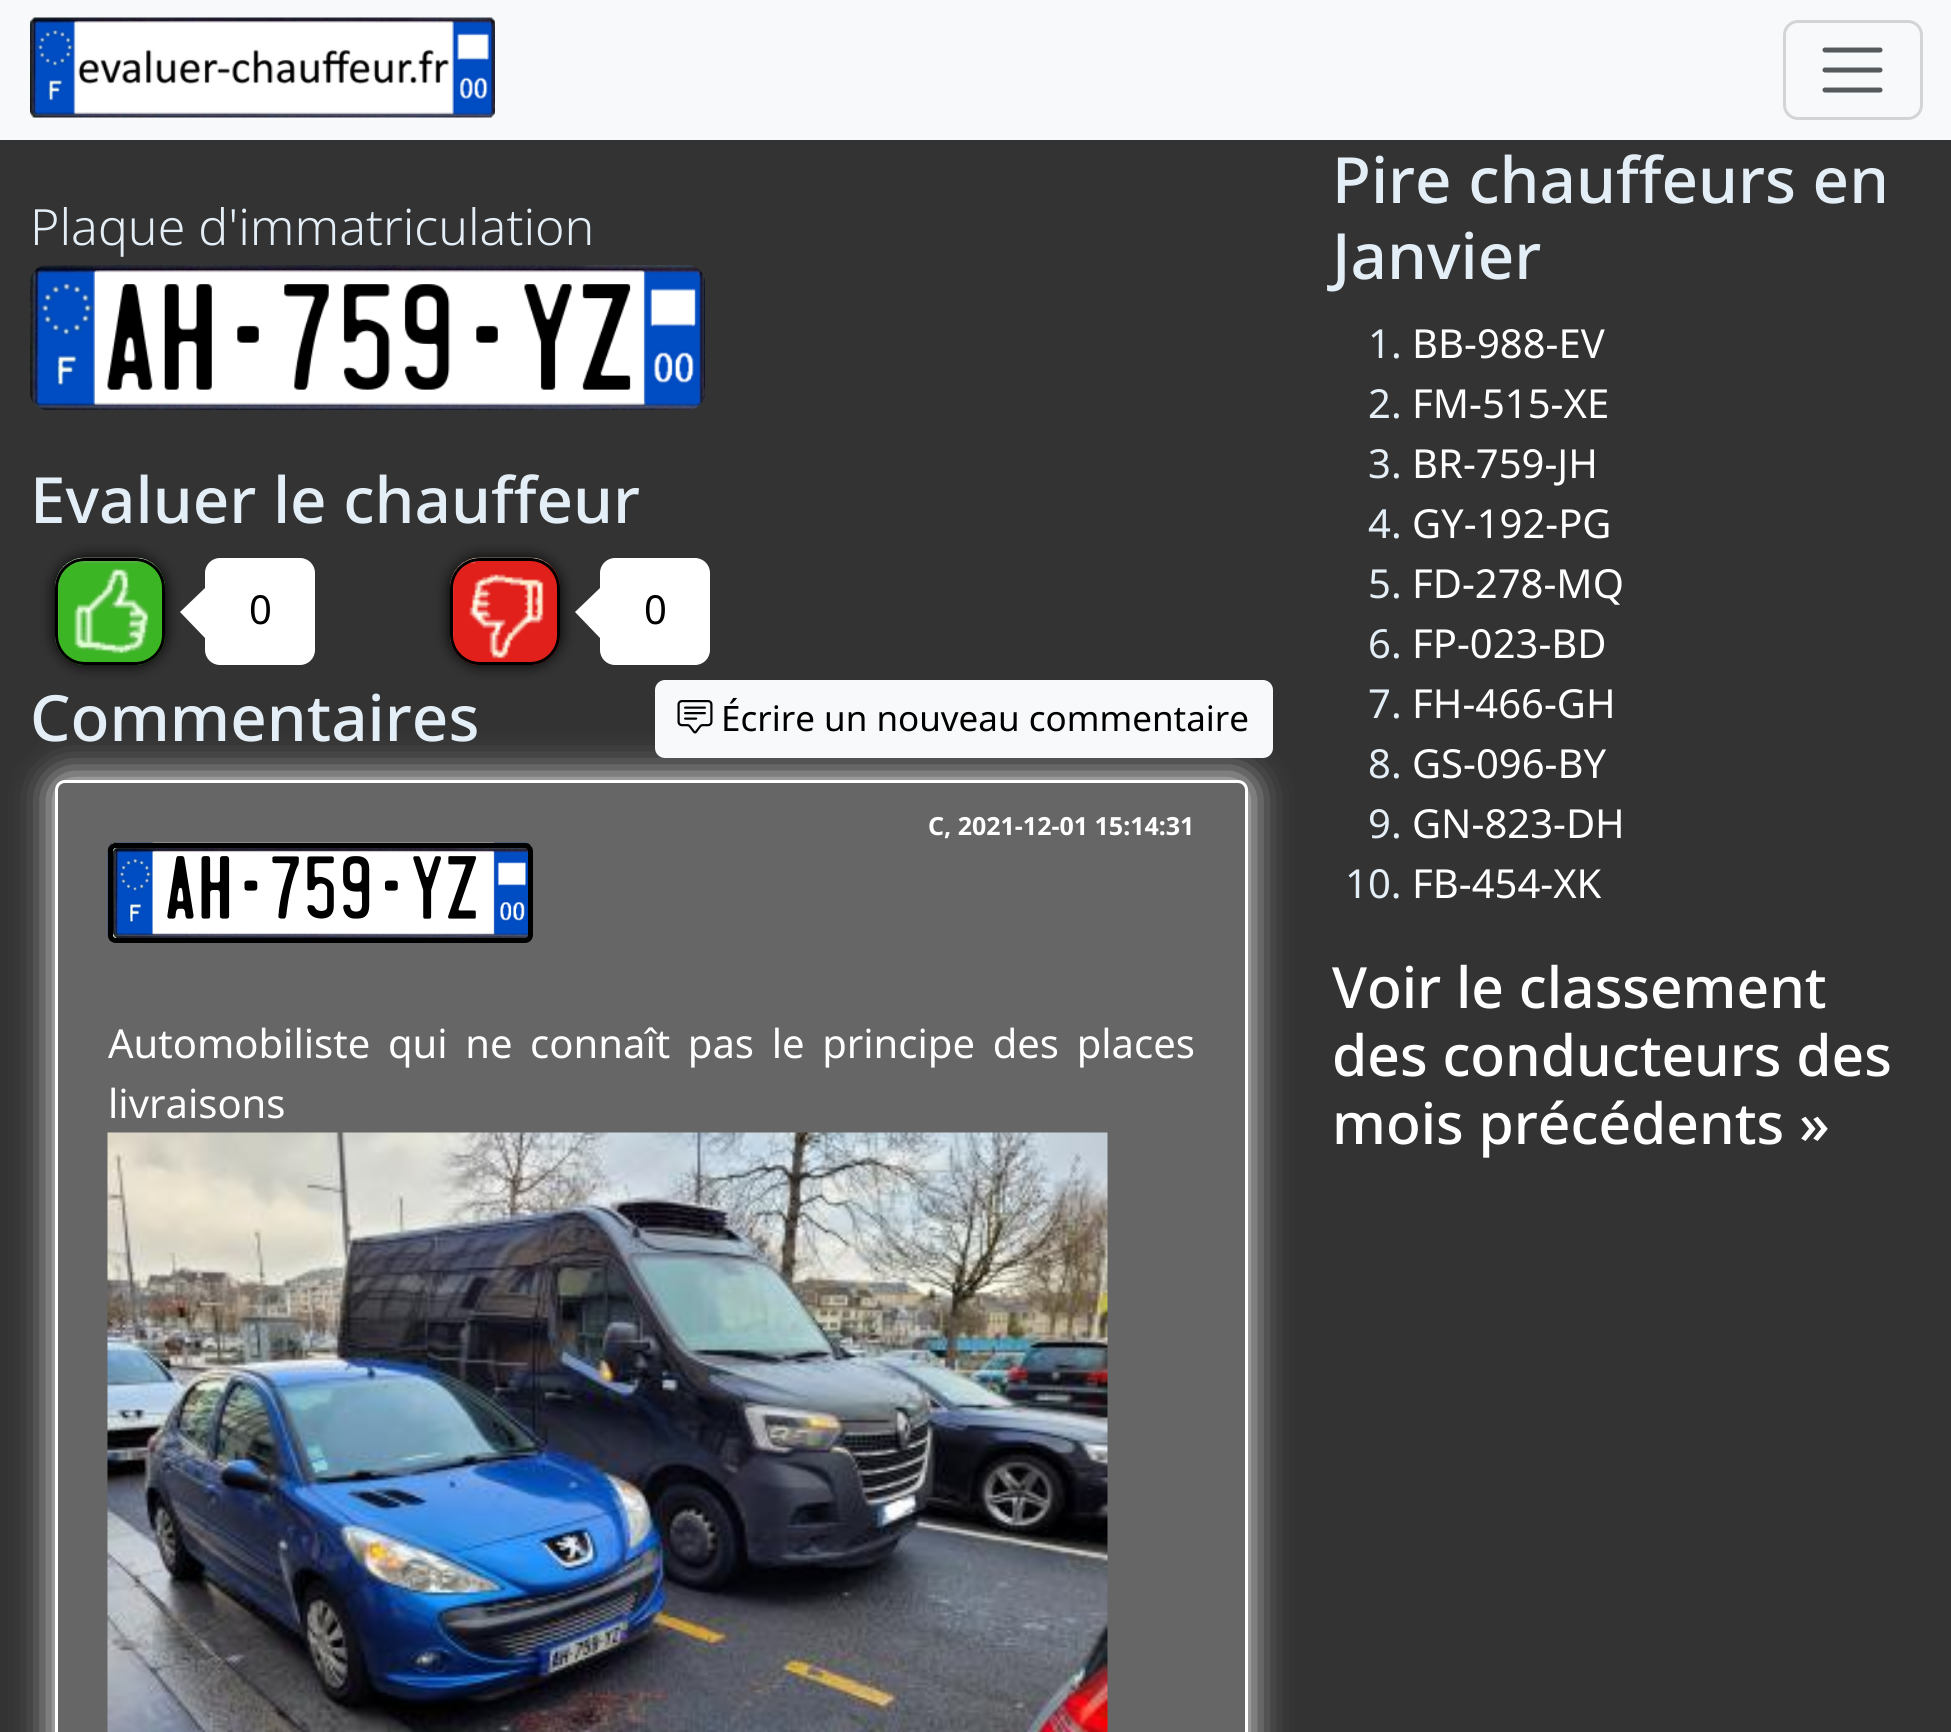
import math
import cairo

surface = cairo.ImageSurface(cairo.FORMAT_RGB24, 1951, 1732)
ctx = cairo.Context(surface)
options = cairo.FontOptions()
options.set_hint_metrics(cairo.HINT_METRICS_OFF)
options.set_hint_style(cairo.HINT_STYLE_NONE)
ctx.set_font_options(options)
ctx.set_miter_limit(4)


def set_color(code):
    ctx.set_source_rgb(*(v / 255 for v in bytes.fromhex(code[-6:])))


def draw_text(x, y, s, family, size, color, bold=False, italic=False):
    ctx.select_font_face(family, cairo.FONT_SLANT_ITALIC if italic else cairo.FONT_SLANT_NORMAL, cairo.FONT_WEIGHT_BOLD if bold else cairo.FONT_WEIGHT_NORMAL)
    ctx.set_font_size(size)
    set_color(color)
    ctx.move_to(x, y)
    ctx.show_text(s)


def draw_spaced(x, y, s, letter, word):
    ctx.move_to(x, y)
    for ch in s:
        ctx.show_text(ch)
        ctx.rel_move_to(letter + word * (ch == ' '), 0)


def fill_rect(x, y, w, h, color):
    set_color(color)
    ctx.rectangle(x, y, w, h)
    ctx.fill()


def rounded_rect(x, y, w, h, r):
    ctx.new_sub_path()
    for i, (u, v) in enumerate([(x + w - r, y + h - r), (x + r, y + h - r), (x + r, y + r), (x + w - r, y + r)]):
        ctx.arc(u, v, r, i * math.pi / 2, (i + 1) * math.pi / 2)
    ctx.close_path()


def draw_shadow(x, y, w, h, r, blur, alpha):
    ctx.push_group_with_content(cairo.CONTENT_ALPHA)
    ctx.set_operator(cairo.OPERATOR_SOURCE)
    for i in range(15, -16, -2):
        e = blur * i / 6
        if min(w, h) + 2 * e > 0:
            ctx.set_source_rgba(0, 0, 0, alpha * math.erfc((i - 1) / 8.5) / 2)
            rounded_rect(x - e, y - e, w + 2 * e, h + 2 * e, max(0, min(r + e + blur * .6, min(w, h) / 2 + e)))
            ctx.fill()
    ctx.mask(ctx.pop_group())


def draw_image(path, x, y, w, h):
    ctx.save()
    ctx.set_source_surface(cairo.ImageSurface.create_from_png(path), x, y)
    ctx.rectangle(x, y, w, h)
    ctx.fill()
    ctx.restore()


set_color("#333333")
ctx.paint()
fill_rect(0, 0, 1951, 140, "#f8f9fa")
draw_image("assets/img1.png", 30, 17, 465, 101)
rounded_rect(1784.5, 21.5, 137, 97, 13.5)
set_color("#d3d4d5")
ctx.set_line_width(3)
ctx.stroke()
ctx.new_path()
ctx.move_to(1825, 50)
ctx.line_to(1880, 50)
ctx.move_to(1825, 70)
ctx.line_to(1880, 70)
ctx.move_to(1825, 90)
ctx.line_to(1880, 90)
set_color("#575a5d")
ctx.set_line_width(5)
ctx.set_line_cap(cairo.LINE_CAP_ROUND)
ctx.stroke()
draw_text(30, 245, "Plaque d'immatriculation", "Noto Sans Light", 50, "#e4eef6")
draw_image("assets/img2.png", 30, 265, 675, 145)
draw_text(30, 523, "Evaluer le chauffeur", "Noto Sans Medium", 63.75, "#e4eef6")
set_color("#000000")
draw_shadow(55, 558, 110, 107, 30, 7.5, 1)
draw_image("assets/img3.png", 55, 557, 110, 108)
rounded_rect(56.5, 559.5, 107, 104, 28.5)
set_color("#000000")
ctx.set_line_width(3)
ctx.set_line_cap(cairo.LINE_CAP_BUTT)
ctx.stroke()
set_color("#ffffff")
ctx.new_path()
ctx.move_to(205, 588)
ctx.line_to(205, 638)
ctx.line_to(180, 612)
ctx.close_path()
ctx.fill()
rounded_rect(205, 558, 110, 107, 15)
ctx.fill()
draw_text(249, 624, "0", "Noto Sans", 40, "#000000")
set_color("#000000")
draw_shadow(450, 558, 110, 107, 30, 7.5, 1)
draw_image("assets/img4.png", 450, 557, 110, 108)
rounded_rect(451.5, 559.5, 107, 104, 28.5)
set_color("#000000")
ctx.stroke()
set_color("#ffffff")
ctx.new_path()
ctx.move_to(600, 588)
ctx.line_to(600, 638)
ctx.line_to(575, 612)
ctx.close_path()
ctx.fill()
rounded_rect(600, 558, 110, 107, 15)
ctx.fill()
draw_text(644, 624, "0", "Noto Sans", 40, "#000000")
set_color("#ffffff")
draw_shadow(55, 780, 1193, 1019, 10, 19, 1)
draw_text(30, 741, "Commentaires", "Noto Sans Medium", 63.75, "#e4eef6")
set_color("#f8f9fa")
rounded_rect(656.5, 681.5, 615, 75, 8.5)
ctx.fill_preserve()
ctx.stroke()
draw_image("assets/img5.png", 677, 700, 36, 34)
draw_text(721, 731, "Écrire un nouveau commentaire", "Noto Sans", 35, "#000000")
set_color("#666666")
rounded_rect(56.5, 781.5, 1190, 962, 8.5)
ctx.fill_preserve()
set_color("#ffffff")
ctx.stroke()
draw_text(928, 835, "C, 2021-12-01 15:14:31", "Noto Sans", 25, "#ffffff", bold=True)
draw_image("assets/img6.png", 107, 842, 426, 101)
rounded_rect(110.5, 845.5, 420, 95, 5.5)
set_color("#000000")
ctx.set_line_width(5)
ctx.stroke()
draw_text(163, 920, "AH-759-YZ", "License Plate", 80, "#000000")
ctx.select_font_face("Noto Sans")
ctx.set_font_size(40)
set_color("#ffffff")
draw_spaced(108, 1058, "Automobiliste qui ne connaît pas le principe des places", 0, 7.25)
draw_text(108, 1118, "livraisons", "Noto Sans", 40, "#ffffff")
draw_image("assets/img7.png", 107, 1132, 1001, 600)
draw_text(1332, 203, "Pire chauffeurs en", "Noto Sans Medium", 63.75, "#e4eef6")
draw_text(1332, 279, "Janvier", "Noto Sans Medium", 63.75, "#e4eef6")
draw_text(1368, 358, "1.", "Noto Sans", 40, "#e4eef6")
draw_text(1412, 358, "BB-988-EV", "Noto Sans", 40, "#ffffff")
draw_text(1368, 418, "2.", "Noto Sans", 40, "#e4eef6")
draw_text(1412, 418, "FM-515-XE", "Noto Sans", 40, "#ffffff")
draw_text(1368, 478, "3.", "Noto Sans", 40, "#e4eef6")
draw_text(1412, 478, "BR-759-JH", "Noto Sans", 40, "#ffffff")
draw_text(1368, 538, "4.", "Noto Sans", 40, "#e4eef6")
draw_text(1412, 538, "GY-192-PG", "Noto Sans", 40, "#ffffff")
draw_text(1368, 598, "5.", "Noto Sans", 40, "#e4eef6")
draw_text(1412, 598, "FD-278-MQ", "Noto Sans", 40, "#ffffff")
draw_text(1368, 658, "6.", "Noto Sans", 40, "#e4eef6")
draw_text(1412, 658, "FP-023-BD", "Noto Sans", 40, "#ffffff")
draw_text(1368, 718, "7.", "Noto Sans", 40, "#e4eef6")
draw_text(1412, 718, "FH-466-GH", "Noto Sans", 40, "#ffffff")
draw_text(1368, 778, "8.", "Noto Sans", 40, "#e4eef6")
draw_text(1412, 778, "GS-096-BY", "Noto Sans", 40, "#ffffff")
draw_text(1368, 838, "9.", "Noto Sans", 40, "#e4eef6")
draw_text(1412, 838, "GN-823-DH", "Noto Sans", 40, "#ffffff")
draw_text(1345, 898, "10.", "Noto Sans", 40, "#e4eef6")
draw_text(1412, 898, "FB-454-XK", "Noto Sans", 40, "#ffffff")
draw_text(1332, 1008, "Voir le classement", "Noto Sans Medium", 56.9, "#ffffff")
draw_text(1332, 1076, "des conducteurs des", "Noto Sans Medium", 56.9, "#ffffff")
draw_text(1332, 1144, "mois précédents »", "Noto Sans Medium", 56.9, "#ffffff")
surface.write_to_png("output.png")
